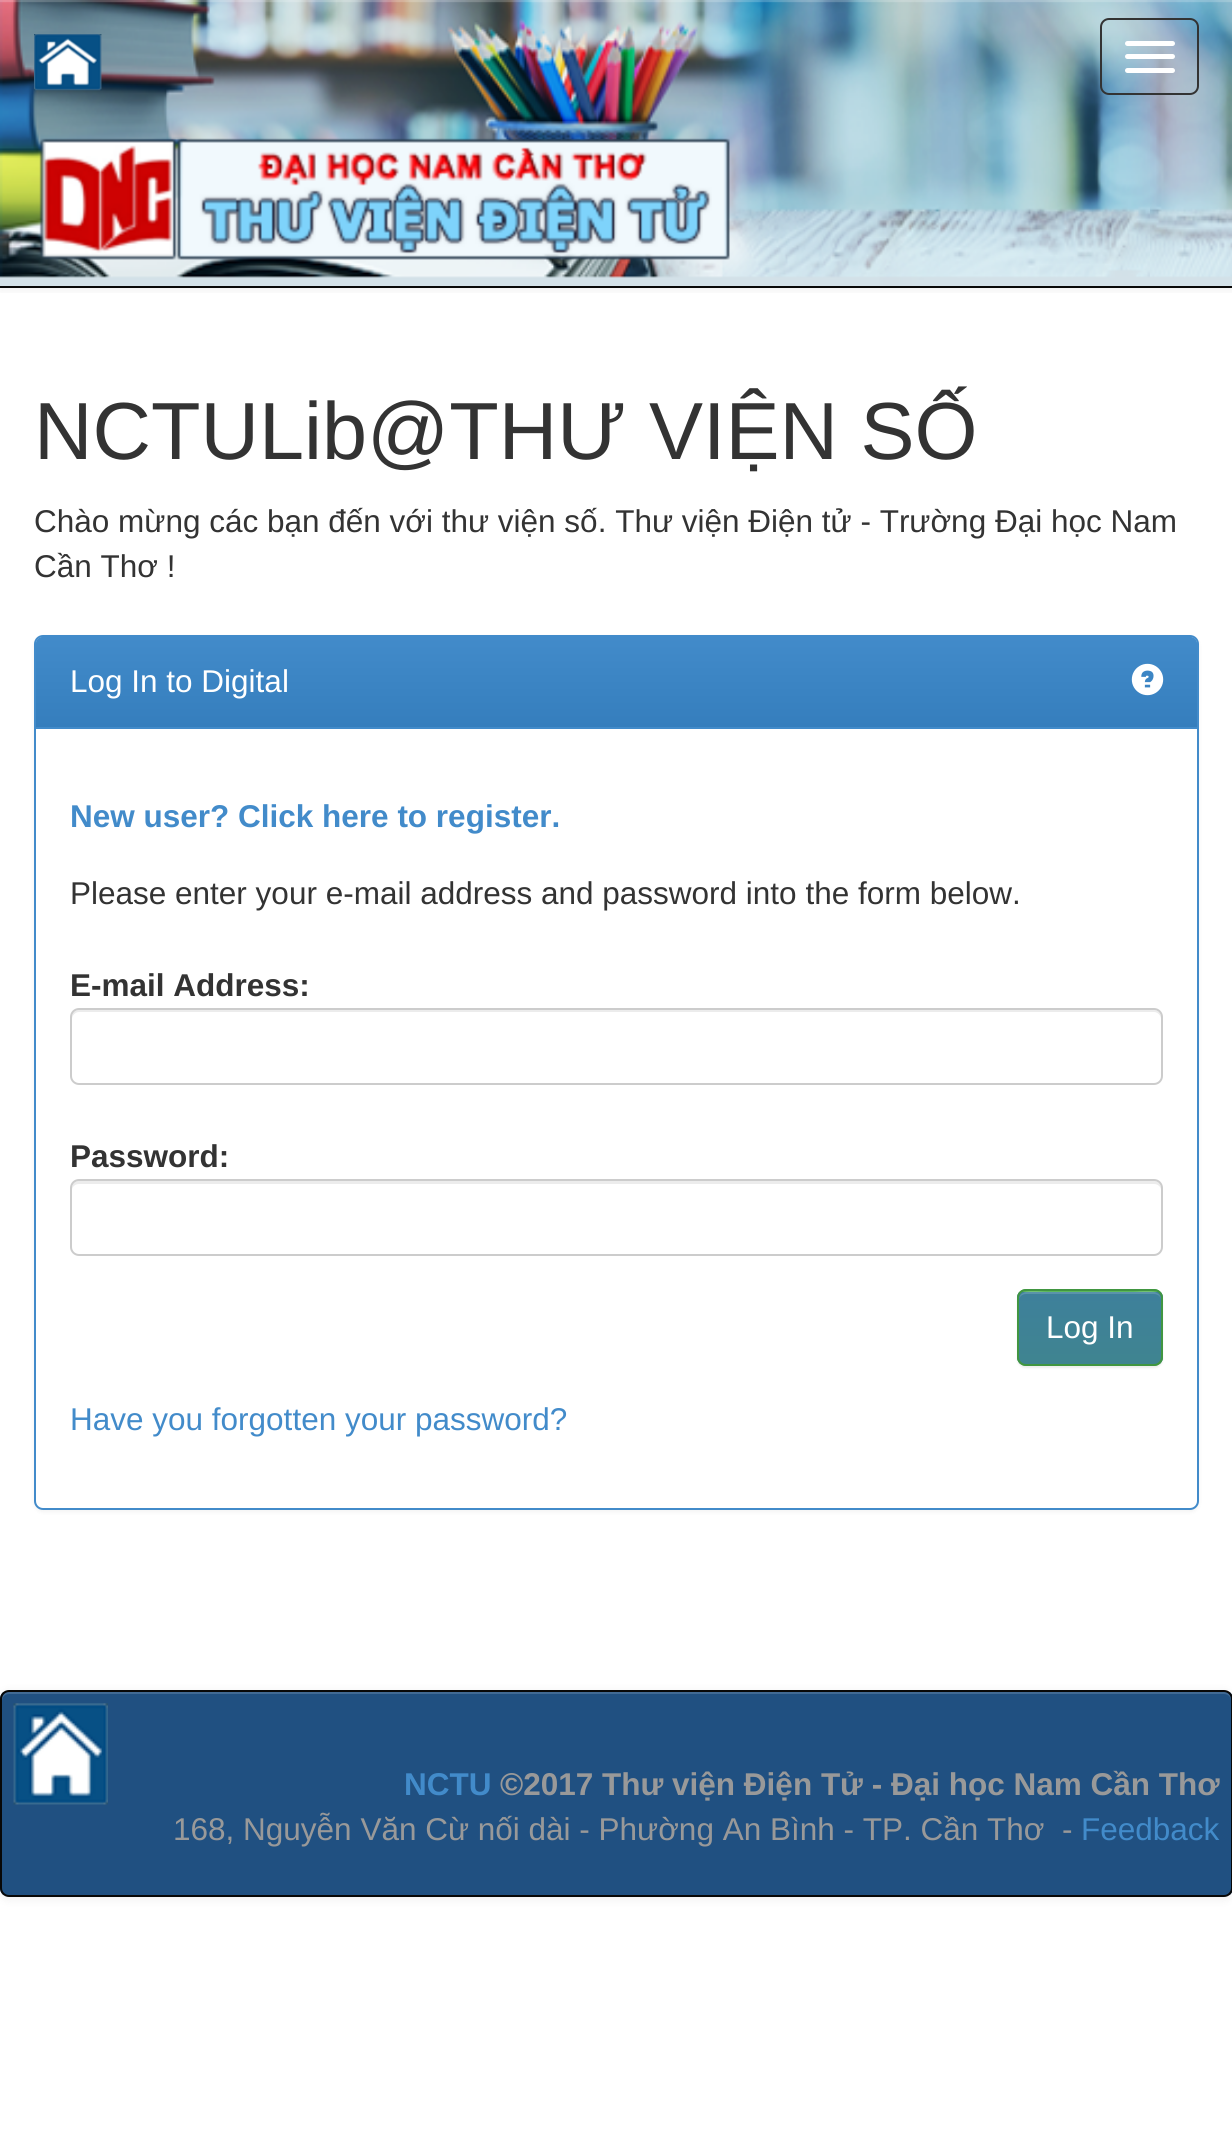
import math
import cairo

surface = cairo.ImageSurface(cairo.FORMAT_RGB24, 1232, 2140)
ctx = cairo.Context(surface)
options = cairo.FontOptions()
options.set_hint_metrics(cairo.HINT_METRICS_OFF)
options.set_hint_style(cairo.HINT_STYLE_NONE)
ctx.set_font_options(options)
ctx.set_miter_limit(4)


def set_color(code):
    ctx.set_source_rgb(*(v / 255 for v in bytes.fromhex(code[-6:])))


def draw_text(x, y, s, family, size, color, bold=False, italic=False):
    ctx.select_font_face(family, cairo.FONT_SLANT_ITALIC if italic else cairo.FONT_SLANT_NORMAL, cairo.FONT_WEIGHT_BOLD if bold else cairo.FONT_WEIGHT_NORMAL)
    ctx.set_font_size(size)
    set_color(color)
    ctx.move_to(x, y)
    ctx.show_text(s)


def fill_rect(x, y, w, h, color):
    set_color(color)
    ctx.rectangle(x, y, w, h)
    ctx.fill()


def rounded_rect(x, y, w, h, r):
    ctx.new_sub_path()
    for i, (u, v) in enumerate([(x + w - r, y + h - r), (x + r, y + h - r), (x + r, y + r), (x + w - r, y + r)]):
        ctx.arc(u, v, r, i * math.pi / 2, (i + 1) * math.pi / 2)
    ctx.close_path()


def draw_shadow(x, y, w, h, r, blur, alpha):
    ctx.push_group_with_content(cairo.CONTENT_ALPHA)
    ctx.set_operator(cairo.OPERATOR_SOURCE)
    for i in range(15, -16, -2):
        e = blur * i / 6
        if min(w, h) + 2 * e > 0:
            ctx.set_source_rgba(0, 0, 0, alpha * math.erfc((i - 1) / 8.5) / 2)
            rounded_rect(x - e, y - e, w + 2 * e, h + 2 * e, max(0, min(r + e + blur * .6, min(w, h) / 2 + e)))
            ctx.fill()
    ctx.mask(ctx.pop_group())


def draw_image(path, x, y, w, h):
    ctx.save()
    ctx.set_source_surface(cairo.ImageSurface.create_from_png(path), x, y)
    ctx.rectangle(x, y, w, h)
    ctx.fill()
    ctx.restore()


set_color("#ffffff")
ctx.paint()
ctx.save()
ctx.rectangle(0, 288, 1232, 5)
ctx.clip()
set_color("#000000")
draw_shadow(0, 2, 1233, 288, 0, 5.5, 0.07)
ctx.restore()
draw_image("assets/img1.png", 0, 0, 1232, 286)
ctx.set_source_rgba(1, 1, 1, 0.15)
ctx.rectangle(0, 0, 1232, 2)
ctx.fill()
fill_rect(0, 286, 1232, 2, "#080808")
draw_image("assets/img2.png", 34, 34, 68, 57)
rounded_rect(1101, 19, 97, 75, 8)
set_color("#333333")
ctx.stroke()
set_color("#ffffff")
rounded_rect(1125, 41, 50, 5, 2.5)
ctx.fill()
rounded_rect(1125, 54, 50, 5, 2.5)
ctx.fill()
rounded_rect(1125, 68, 50, 5, 2.5)
ctx.fill()
draw_image("assets/img3.png", 39, 138, 691, 122)
draw_text(34, 459, "NCTULib@THƯ VIỆN SỐ", "Liberation Sans", 81, "#333333")
draw_text(34, 532, "Chào mừng các bạn đến với thư viện số. Thư viện Điện tử - Trường Đại học Nam", "Liberation Sans", 31.5, "#333333")
draw_text(34, 577, "Cần Thơ !", "Liberation Sans", 31.5, "#333333")
set_color("#000000")
draw_shadow(34, 637, 1165, 875, 9, 2, 0.05)
set_color("#ffffff")
rounded_rect(35, 636, 1163, 873, 8)
ctx.fill_preserve()
set_color("#428bca")
ctx.stroke()
ctx.new_path()
ctx.move_to(43, 637)
ctx.line_to(1190, 637)
ctx.curve_to(1194, 637, 1197, 640, 1197, 644)
ctx.line_to(1197, 729)
ctx.line_to(36, 729)
ctx.line_to(36, 644)
ctx.curve_to(36, 640, 39, 637, 43, 637)
ctx.close_path()
ctx.fill()
gradient = cairo.LinearGradient(617, 637, 617, 727)
gradient.add_color_stop_rgba(0, 0.259, 0.545, 0.792, 1)
gradient.add_color_stop_rgba(1, 0.208, 0.494, 0.741, 1)
ctx.set_source(gradient)
ctx.new_path()
ctx.move_to(43, 637)
ctx.line_to(1190, 637)
ctx.curve_to(1194, 637, 1197, 640, 1197, 644)
ctx.line_to(1197, 727)
ctx.line_to(36, 727)
ctx.line_to(36, 644)
ctx.curve_to(36, 640, 39, 637, 43, 637)
ctx.close_path()
ctx.fill()
draw_text(70, 692, "Log In to Digital", "Liberation Sans", 31.5, "#ffffff")
draw_image("assets/img4.png", 1131, 663, 33, 33)
draw_text(70, 827, "New user? Click here to register.", "Liberation Sans", 31.5, "#428bca", bold=True)
draw_text(70, 904, "Please enter your e-mail address and password into the form below.", "Liberation Sans", 31.5, "#333333")
draw_text(70, 996, "E-mail Address:", "Liberation Sans", 31.5, "#333333", bold=True)
set_color("#ececec")
ctx.new_path()
ctx.move_to(79, 1012)
ctx.line_to(1154, 1012)
ctx.curve_to(1158, 1012, 1161, 1016, 1161, 1019)
ctx.line_to(1161, 1017)
ctx.curve_to(1161, 1013, 1158, 1010, 1154, 1010)
ctx.line_to(79, 1010)
ctx.curve_to(75, 1010, 72, 1013, 72, 1017)
ctx.line_to(72, 1019)
ctx.curve_to(72, 1016, 75, 1012, 79, 1012)
ctx.close_path()
ctx.fill()
rounded_rect(71, 1009, 1091, 75, 8)
set_color("#cccccc")
ctx.stroke()
draw_text(70, 1167, "Password:", "Liberation Sans", 31.5, "#333333", bold=True)
set_color("#ececec")
ctx.new_path()
ctx.move_to(79, 1184)
ctx.line_to(1154, 1184)
ctx.curve_to(1158, 1184, 1161, 1187, 1161, 1190)
ctx.line_to(1161, 1188)
ctx.curve_to(1161, 1184, 1158, 1181, 1154, 1181)
ctx.line_to(79, 1181)
ctx.curve_to(75, 1181, 72, 1184, 72, 1188)
ctx.line_to(72, 1190)
ctx.curve_to(72, 1187, 75, 1184, 79, 1184)
ctx.close_path()
ctx.fill()
rounded_rect(71, 1180, 1091, 75, 8)
set_color("#cccccc")
ctx.stroke()
set_color("#000000")
draw_shadow(1017, 1292, 146, 76, 9, 1, 0.07)
set_color("#5cb85c")
rounded_rect(1017, 1289, 146, 77, 9)
ctx.fill()
ctx.save()
rounded_rect(1017, 1289, 146, 77, 9)
ctx.clip()
gradient = cairo.LinearGradient(1090, 1292, 1090, 1364)
gradient.add_color_stop_rgba(0, 0.243, 0.502, 0.608, 1)
gradient.add_color_stop_rgba(1, 0.247, 0.518, 0.565, 1)
ctx.set_source(gradient)
ctx.rectangle(1017, 1292, 146, 72)
ctx.fill()
ctx.restore()
ctx.set_source_rgba(1, 1, 1, 0.15)
ctx.new_path()
ctx.move_to(1026, 1294)
ctx.line_to(1154, 1294)
ctx.curve_to(1158, 1294, 1161, 1297, 1161, 1300)
ctx.curve_to(1161, 1287, 1139, 1292, 1133, 1292)
ctx.line_to(1047, 1292)
ctx.curve_to(1041, 1292, 1019, 1287, 1019, 1300)
ctx.curve_to(1019, 1297, 1022, 1294, 1026, 1294)
ctx.close_path()
ctx.fill()
rounded_rect(1018, 1290, 144, 75, 8)
set_color("#419641")
ctx.stroke()
draw_text(1046, 1338, "Log In", "Liberation Sans", 31.5, "#ffffff")
draw_text(70, 1430, "Have you forgotten your password?", "Liberation Sans", 31.5, "#428bca")
set_color("#000000")
draw_shadow(0, 1692, 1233, 207, 9, 5.5, 0.07)
ctx.save()
rounded_rect(0, 1690, 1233, 207, 9)
ctx.clip()
fill_rect(0, 1692, 1232, 203, "#205081")
ctx.restore()
set_color("#416a94")
ctx.new_path()
ctx.move_to(9, 1694)
ctx.line_to(1224, 1694)
ctx.curve_to(1228, 1694, 1231, 1697, 1231, 1701)
ctx.line_to(1231, 1699)
ctx.curve_to(1231, 1695, 1228, 1692, 1224, 1692)
ctx.line_to(9, 1692)
ctx.curve_to(5, 1692, 2, 1695, 2, 1699)
ctx.line_to(2, 1701)
ctx.curve_to(2, 1697, 5, 1694, 9, 1694)
ctx.close_path()
ctx.fill()
rounded_rect(1, 1691, 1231, 205, 8)
set_color("#080808")
ctx.stroke()
draw_image("assets/img5.png", 13, 1703, 95, 102)
draw_text(404, 1795, "NCTU", "Liberation Sans", 31.5, "#428bca", bold=True)
draw_text(500, 1795, "©2017 Thư viện Điện Tử - Đại học Nam Cần Thơ", "Liberation Sans", 31.5, "#999999", bold=True)
draw_text(173, 1840, "168, Nguyễn Văn Cừ nối dài - Phường An Bình - TP. Cần Thơ  -", "Liberation Sans", 31.5, "#999999")
draw_text(1081, 1840, "Feedback", "Liberation Sans", 31.5, "#428bca")
surface.write_to_png("output.png")
